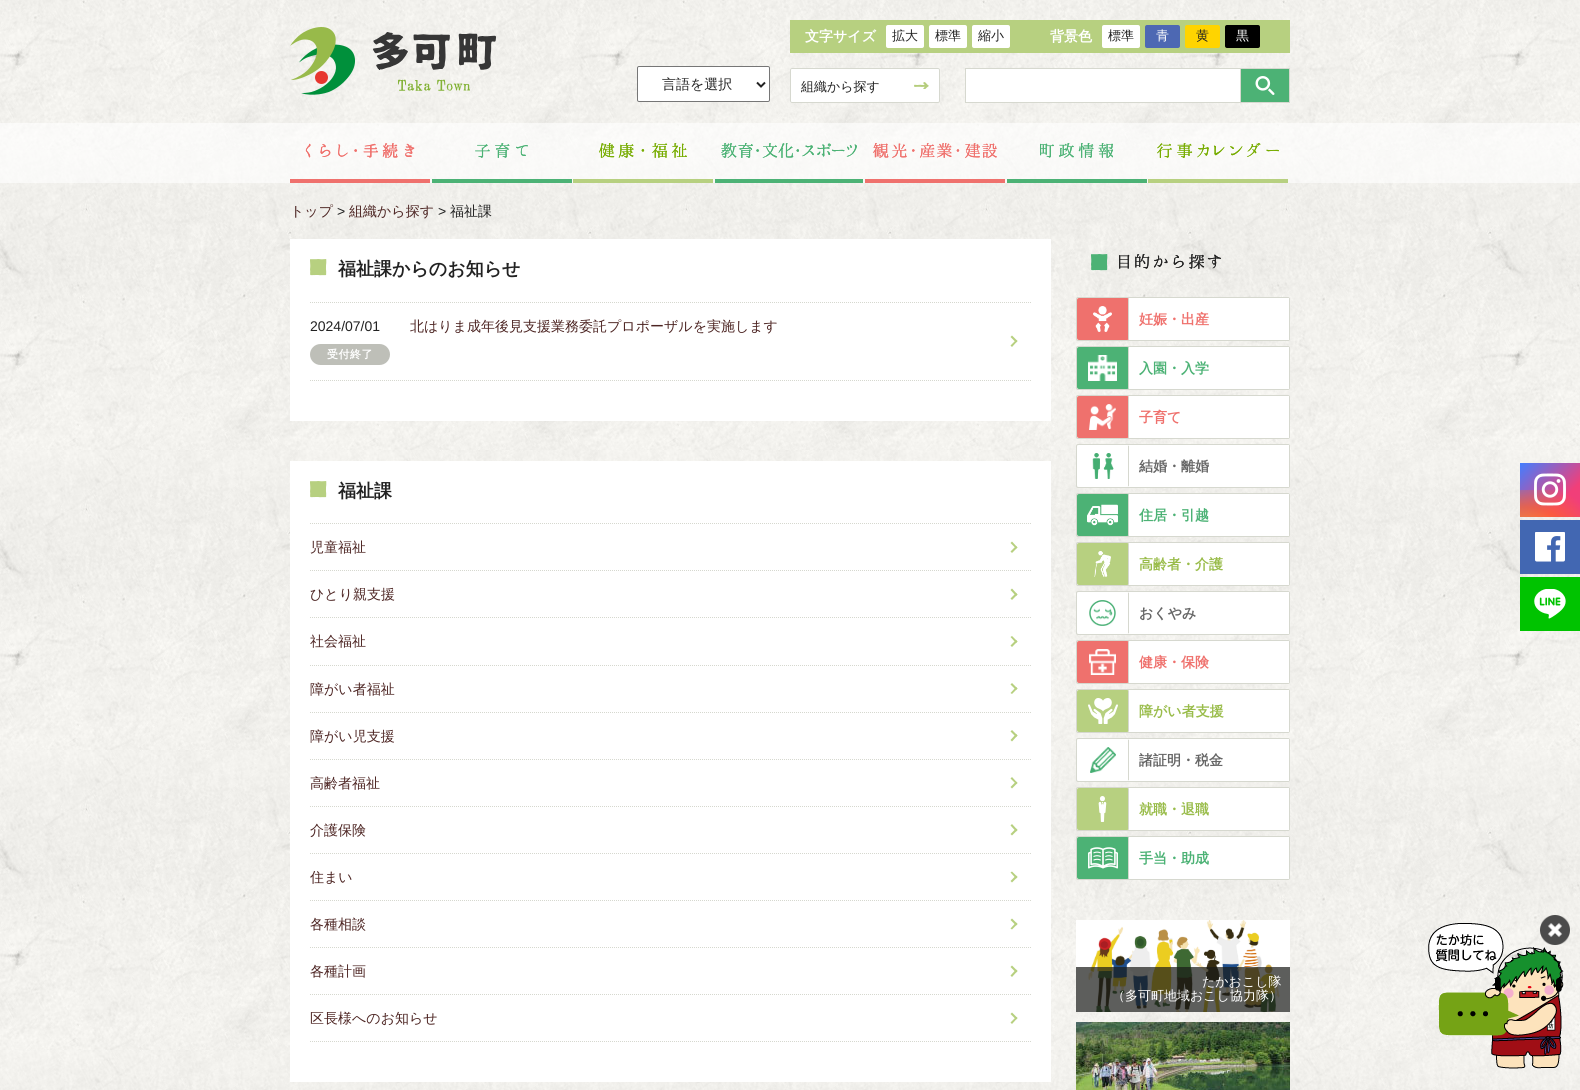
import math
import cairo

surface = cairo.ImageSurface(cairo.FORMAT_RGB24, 1580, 1090)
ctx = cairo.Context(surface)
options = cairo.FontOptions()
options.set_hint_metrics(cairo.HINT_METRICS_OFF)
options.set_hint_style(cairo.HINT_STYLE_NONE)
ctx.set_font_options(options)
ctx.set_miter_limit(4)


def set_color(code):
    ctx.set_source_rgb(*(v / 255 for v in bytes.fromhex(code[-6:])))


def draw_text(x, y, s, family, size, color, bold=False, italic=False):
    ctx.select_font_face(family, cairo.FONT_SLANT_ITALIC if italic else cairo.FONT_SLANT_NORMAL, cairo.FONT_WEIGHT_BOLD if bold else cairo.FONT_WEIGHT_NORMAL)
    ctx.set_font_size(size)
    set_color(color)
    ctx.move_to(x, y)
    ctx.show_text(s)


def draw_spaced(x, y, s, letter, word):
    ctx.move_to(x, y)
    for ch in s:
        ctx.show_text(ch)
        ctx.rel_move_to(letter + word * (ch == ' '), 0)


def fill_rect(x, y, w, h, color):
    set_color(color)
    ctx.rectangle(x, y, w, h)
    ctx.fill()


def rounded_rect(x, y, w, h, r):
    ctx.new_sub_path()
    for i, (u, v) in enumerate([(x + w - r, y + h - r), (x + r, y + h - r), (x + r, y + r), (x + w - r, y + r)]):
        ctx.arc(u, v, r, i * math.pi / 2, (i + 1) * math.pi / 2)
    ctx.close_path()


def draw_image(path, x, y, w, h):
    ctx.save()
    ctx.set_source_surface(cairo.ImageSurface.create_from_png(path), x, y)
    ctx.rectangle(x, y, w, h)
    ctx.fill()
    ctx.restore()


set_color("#ffffff")
ctx.paint()
draw_image("assets/img1.png", 0, 0, 1580, 1090)
draw_image("assets/img2.png", 290, 27, 65, 68)
draw_image("assets/img3.png", 373, 32, 123, 59)
set_color("#ffffff")
rounded_rect(637.5, 66.5, 132, 35, 1.5)
ctx.fill_preserve()
set_color("#767676")
ctx.set_line_width(1)
ctx.stroke()
ctx.new_path()
ctx.move_to(757, 82.5)
ctx.line_to(761, 86.5)
ctx.line_to(765, 82.5)
set_color("#222222")
ctx.set_line_width(2)
ctx.stroke()
draw_text(662, 89, "言語を選択", "WenQuanYi Zen Hei Medium", 14, "#222222")
fill_rect(790, 20, 500, 33, "#b7d080")
draw_text(805, 41, "文字サイズ", "WenQuanYi Zen Hei", 14, "#ffffff", bold=True)
rounded_rect(886, 25, 38, 23, 2)
ctx.fill()
draw_text(892, 40, "拡大", "WenQuanYi Zen Hei Medium", 13, "#222222")
set_color("#ffffff")
rounded_rect(929, 25, 38, 23, 2)
ctx.fill()
draw_text(935, 40, "標準", "WenQuanYi Zen Hei Medium", 13, "#222222")
set_color("#ffffff")
rounded_rect(972, 25, 38, 23, 2)
ctx.fill()
draw_text(978, 40, "縮小", "WenQuanYi Zen Hei Medium", 13, "#222222")
draw_text(1050, 41, "背景色", "WenQuanYi Zen Hei", 14, "#ffffff", bold=True)
rounded_rect(1102, 25, 38, 23, 2)
ctx.fill()
draw_text(1108, 40, "標準", "WenQuanYi Zen Hei Medium", 13, "#222222")
set_color("#4d68b3")
rounded_rect(1145, 25, 35, 23, 2)
ctx.fill()
draw_text(1156, 40, "青", "WenQuanYi Zen Hei Medium", 13, "#ffffff")
set_color("#ffd400")
rounded_rect(1185, 25, 35, 23, 2)
ctx.fill()
draw_text(1196, 40, "黄", "WenQuanYi Zen Hei Medium", 13, "#222222")
set_color("#000000")
rounded_rect(1225, 25, 35, 23, 2)
ctx.fill()
draw_text(1236, 40, "黒", "WenQuanYi Zen Hei Medium", 13, "#ffffff")
rounded_rect(790, 68, 150, 35, 2)
ctx.fill()
draw_image("assets/img4.png", 914, 82, 15, 7)
rounded_rect(790.5, 68.5, 149, 34, 1.5)
set_color("#d6d8cf")
ctx.set_line_width(1)
ctx.stroke()
draw_text(801, 91, "組織から探す", "WenQuanYi Zen Hei Medium", 13, "#222222")
set_color("#ffffff")
ctx.rectangle(965.5, 68.5, 275, 34)
ctx.fill_preserve()
set_color("#d6d8cf")
ctx.stroke()
fill_rect(1241, 69, 48, 33, "#4cb275")
draw_image("assets/img5.png", 1255, 76, 20, 19)
ctx.rectangle(1240.5, 68.5, 49, 34)
set_color("#d6d8cf")
ctx.stroke()
ctx.set_source_rgba(1, 1, 1, 0.6)
ctx.rectangle(0, 123, 1580, 60)
ctx.fill()
fill_rect(290, 179, 140, 4, "#ef716d")
draw_image("assets/img6.png", 305, 143, 110, 15)
fill_rect(432, 179, 140, 4, "#4cb275")
draw_image("assets/img7.png", 475, 143, 53, 15)
fill_rect(573, 179, 140, 4, "#b7d080")
draw_image("assets/img8.png", 599, 143, 88, 15)
fill_rect(715, 179, 148, 4, "#4cb275")
draw_image("assets/img9.png", 721, 143, 136, 15)
fill_rect(865, 179, 140, 4, "#ef716d")
draw_image("assets/img10.png", 873, 143, 124, 15)
fill_rect(1007, 179, 140, 4, "#4cb275")
draw_image("assets/img11.png", 1040, 143, 73, 15)
fill_rect(1148, 179, 140, 4, "#b7d080")
draw_image("assets/img12.png", 1157, 143, 122, 15)
draw_text(290, 216, "トップ", "WenQuanYi Zen Hei Medium", 14, "#4d2523")
draw_text(337, 216, ">", "Liberation Sans", 14, "#222222")
draw_text(349, 216, "組織から探す", "WenQuanYi Zen Hei Medium", 14, "#4d2523")
draw_text(438, 216, ">", "Liberation Sans", 14, "#222222")
draw_text(450, 216, "福祉課", "WenQuanYi Zen Hei Medium", 14, "#222222")
fill_rect(290, 239, 761, 182, "#ffffff")
draw_image("assets/img13.png", 310, 259, 17, 17)
draw_text(338, 275, "福祉課からのお知らせ", "WenQuanYi Zen Hei", 18, "#222222", bold=True)
ctx.new_path()
ctx.move_to(310, 302.5)
ctx.line_to(1031, 302.5)
set_color("#d6d8cf")
ctx.set_dash([1, 1])
ctx.stroke()
ctx.new_path()
ctx.move_to(310, 380.5)
ctx.line_to(1031, 380.5)
ctx.stroke()
draw_text(310, 331, "2024/07/01", "Liberation Sans", 14, "#222222")
set_color("#bebfb8")
rounded_rect(310, 344, 80, 21, 10.5)
ctx.fill()
ctx.select_font_face("WenQuanYi Zen Hei", cairo.FONT_SLANT_NORMAL, cairo.FONT_WEIGHT_BOLD)
ctx.set_font_size(11)
set_color("#ffffff")
draw_spaced(327, 358, "受付終了", 0.5, 0)
draw_text(410, 331, "北はりま成年後見支援業務委託プロポーザルを実施します", "WenQuanYi Zen Hei Medium", 14, "#4d2523")
set_color("#b7d080")
ctx.new_path()
ctx.move_to(1012, 335.5)
ctx.line_to(1017.5, 341)
ctx.line_to(1016, 342.5)
ctx.line_to(1010.5, 337)
ctx.close_path()
ctx.fill()
ctx.new_path()
ctx.move_to(1016, 340)
ctx.line_to(1017.5, 341)
ctx.line_to(1012, 347)
ctx.line_to(1010.5, 345.5)
ctx.close_path()
ctx.fill()
fill_rect(290, 461, 761, 621, "#ffffff")
draw_image("assets/img13.png", 310, 481, 17, 17)
draw_text(338, 497, "福祉課", "WenQuanYi Zen Hei", 18, "#222222", bold=True)
ctx.new_path()
ctx.move_to(310, 523.5)
ctx.line_to(1031, 523.5)
set_color("#d6d8cf")
ctx.stroke()
ctx.new_path()
ctx.move_to(310, 570.5)
ctx.line_to(1031, 570.5)
ctx.stroke()
draw_text(310, 552, "児童福祉", "WenQuanYi Zen Hei Medium", 14, "#4d2523")
set_color("#b7d080")
ctx.new_path()
ctx.move_to(1012, 541.5)
ctx.line_to(1017.5, 547.5)
ctx.line_to(1016, 548.5)
ctx.line_to(1010.5, 543)
ctx.close_path()
ctx.fill()
ctx.new_path()
ctx.move_to(1016, 546)
ctx.line_to(1017.5, 547.5)
ctx.line_to(1012, 553)
ctx.line_to(1010.5, 551.5)
ctx.close_path()
ctx.fill()
ctx.new_path()
ctx.move_to(310, 617.5)
ctx.line_to(1031, 617.5)
set_color("#d6d8cf")
ctx.stroke()
draw_text(310, 599, "ひとり親支援", "WenQuanYi Zen Hei Medium", 14, "#4d2523")
set_color("#b7d080")
ctx.new_path()
ctx.move_to(1012, 588.5)
ctx.line_to(1017.5, 594.5)
ctx.line_to(1016, 596)
ctx.line_to(1010.5, 590)
ctx.close_path()
ctx.fill()
ctx.new_path()
ctx.move_to(1016, 593)
ctx.line_to(1017.5, 594.5)
ctx.line_to(1012, 600)
ctx.line_to(1010.5, 598.5)
ctx.close_path()
ctx.fill()
ctx.new_path()
ctx.move_to(310, 665.5)
ctx.line_to(1031, 665.5)
set_color("#d6d8cf")
ctx.stroke()
draw_text(310, 646, "社会福祉", "WenQuanYi Zen Hei Medium", 14, "#4d2523")
set_color("#b7d080")
ctx.new_path()
ctx.move_to(1012, 636)
ctx.line_to(1017.5, 641.5)
ctx.line_to(1016, 643)
ctx.line_to(1010.5, 637)
ctx.close_path()
ctx.fill()
ctx.new_path()
ctx.move_to(1016, 640)
ctx.line_to(1017.5, 641.5)
ctx.line_to(1012, 647)
ctx.line_to(1010.5, 645.5)
ctx.close_path()
ctx.fill()
ctx.new_path()
ctx.move_to(310, 712.5)
ctx.line_to(1031, 712.5)
set_color("#d6d8cf")
ctx.stroke()
draw_text(310, 694, "障がい者福祉", "WenQuanYi Zen Hei Medium", 14, "#4d2523")
set_color("#b7d080")
ctx.new_path()
ctx.move_to(1012, 683)
ctx.line_to(1017.5, 688.5)
ctx.line_to(1016, 690)
ctx.line_to(1010.5, 684.5)
ctx.close_path()
ctx.fill()
ctx.new_path()
ctx.move_to(1016, 687)
ctx.line_to(1017.5, 688.5)
ctx.line_to(1012, 694)
ctx.line_to(1010.5, 693)
ctx.close_path()
ctx.fill()
ctx.new_path()
ctx.move_to(310, 759.5)
ctx.line_to(1031, 759.5)
set_color("#d6d8cf")
ctx.stroke()
draw_text(310, 741, "障がい児支援", "WenQuanYi Zen Hei Medium", 14, "#4d2523")
set_color("#b7d080")
ctx.new_path()
ctx.move_to(1012, 730)
ctx.line_to(1017.5, 735.5)
ctx.line_to(1016, 737)
ctx.line_to(1010.5, 731.5)
ctx.close_path()
ctx.fill()
ctx.new_path()
ctx.move_to(1016, 734)
ctx.line_to(1017.5, 735.5)
ctx.line_to(1012, 741.5)
ctx.line_to(1010.5, 740)
ctx.close_path()
ctx.fill()
ctx.new_path()
ctx.move_to(310, 806.5)
ctx.line_to(1031, 806.5)
set_color("#d6d8cf")
ctx.stroke()
draw_text(310, 788, "高齢者福祉", "WenQuanYi Zen Hei Medium", 14, "#4d2523")
set_color("#b7d080")
ctx.new_path()
ctx.move_to(1012, 777)
ctx.line_to(1017.5, 783)
ctx.line_to(1016, 784)
ctx.line_to(1010.5, 778.5)
ctx.close_path()
ctx.fill()
ctx.new_path()
ctx.move_to(1016, 781.5)
ctx.line_to(1017.5, 783)
ctx.line_to(1012, 788.5)
ctx.line_to(1010.5, 787)
ctx.close_path()
ctx.fill()
ctx.new_path()
ctx.move_to(310, 853.5)
ctx.line_to(1031, 853.5)
set_color("#d6d8cf")
ctx.stroke()
draw_text(310, 835, "介護保険", "WenQuanYi Zen Hei Medium", 14, "#4d2523")
set_color("#b7d080")
ctx.new_path()
ctx.move_to(1012, 824)
ctx.line_to(1017.5, 830)
ctx.line_to(1016, 831.5)
ctx.line_to(1010.5, 825.5)
ctx.close_path()
ctx.fill()
ctx.new_path()
ctx.move_to(1016, 828.5)
ctx.line_to(1017.5, 830)
ctx.line_to(1012, 835.5)
ctx.line_to(1010.5, 834)
ctx.close_path()
ctx.fill()
ctx.new_path()
ctx.move_to(310, 900.5)
ctx.line_to(1031, 900.5)
set_color("#d6d8cf")
ctx.stroke()
draw_text(310, 882, "住まい", "WenQuanYi Zen Hei Medium", 14, "#4d2523")
set_color("#b7d080")
ctx.new_path()
ctx.move_to(1012, 871.5)
ctx.line_to(1017.5, 877)
ctx.line_to(1016, 878.5)
ctx.line_to(1010.5, 872.5)
ctx.close_path()
ctx.fill()
ctx.new_path()
ctx.move_to(1016, 875.5)
ctx.line_to(1017.5, 877)
ctx.line_to(1012, 882.5)
ctx.line_to(1010.5, 881)
ctx.close_path()
ctx.fill()
ctx.new_path()
ctx.move_to(310, 947.5)
ctx.line_to(1031, 947.5)
set_color("#d6d8cf")
ctx.stroke()
draw_text(310, 929, "各種相談", "WenQuanYi Zen Hei Medium", 14, "#4d2523")
set_color("#b7d080")
ctx.new_path()
ctx.move_to(1012, 918.5)
ctx.line_to(1017.5, 924)
ctx.line_to(1016, 925.5)
ctx.line_to(1010.5, 920)
ctx.close_path()
ctx.fill()
ctx.new_path()
ctx.move_to(1016, 922.5)
ctx.line_to(1017.5, 924)
ctx.line_to(1012, 929.5)
ctx.line_to(1010.5, 928.5)
ctx.close_path()
ctx.fill()
ctx.new_path()
ctx.move_to(310, 994.5)
ctx.line_to(1031, 994.5)
set_color("#d6d8cf")
ctx.stroke()
draw_text(310, 976, "各種計画", "WenQuanYi Zen Hei Medium", 14, "#4d2523")
set_color("#b7d080")
ctx.new_path()
ctx.move_to(1012, 965.5)
ctx.line_to(1017.5, 971)
ctx.line_to(1016, 972.5)
ctx.line_to(1010.5, 967)
ctx.close_path()
ctx.fill()
ctx.new_path()
ctx.move_to(1016, 969.5)
ctx.line_to(1017.5, 971)
ctx.line_to(1012, 977)
ctx.line_to(1010.5, 975.5)
ctx.close_path()
ctx.fill()
ctx.new_path()
ctx.move_to(310, 1041.5)
ctx.line_to(1031, 1041.5)
set_color("#d6d8cf")
ctx.stroke()
draw_text(310, 1023, "区長様へのお知らせ", "WenQuanYi Zen Hei Medium", 14, "#4d2523")
set_color("#b7d080")
ctx.new_path()
ctx.move_to(1012, 1012.5)
ctx.line_to(1017.5, 1018)
ctx.line_to(1016, 1019.5)
ctx.line_to(1010.5, 1014)
ctx.close_path()
ctx.fill()
ctx.new_path()
ctx.move_to(1016, 1017)
ctx.line_to(1017.5, 1018)
ctx.line_to(1012, 1024)
ctx.line_to(1010.5, 1022.5)
ctx.close_path()
ctx.fill()
draw_image("assets/img14.png", 1091, 254, 17, 17)
draw_image("assets/img15.png", 1119, 254, 102, 15)
rounded_rect(1076.5, 297.5, 213, 43, 1.5)
set_color("#d6d8cf")
ctx.set_dash([])
ctx.stroke()
set_color("#ef716d")
rounded_rect(1077, 298, 52, 42, 2)
ctx.fill()
fill_rect(1128, 299, 1, 40, "#d6d8cf")
draw_image("assets/img16.png", 1093, 306, 19, 26)
fill_rect(1129, 298, 160, 42, "#ffffff")
draw_text(1139, 324, "妊娠・出産", "WenQuanYi Zen Hei", 14, "#ef716d", bold=True)
rounded_rect(1076.5, 346.5, 213, 43, 1.5)
set_color("#d6d8cf")
ctx.stroke()
set_color("#4cb275")
rounded_rect(1077, 347, 52, 42, 2)
ctx.fill()
fill_rect(1128, 348, 1, 40, "#d6d8cf")
draw_image("assets/img17.png", 1088, 355, 29, 26)
fill_rect(1129, 347, 160, 42, "#ffffff")
draw_text(1139, 373, "入園・入学", "WenQuanYi Zen Hei", 14, "#4cb275", bold=True)
rounded_rect(1076.5, 395.5, 213, 43, 1.5)
set_color("#d6d8cf")
ctx.stroke()
set_color("#ef716d")
rounded_rect(1077, 396, 52, 42, 2)
ctx.fill()
fill_rect(1128, 397, 1, 40, "#d6d8cf")
draw_image("assets/img18.png", 1089, 404, 27, 26)
fill_rect(1129, 396, 160, 42, "#ffffff")
draw_text(1139, 422, "子育て", "WenQuanYi Zen Hei", 14, "#ef716d", bold=True)
rounded_rect(1076.5, 444.5, 213, 43, 1.5)
set_color("#d6d8cf")
ctx.stroke()
set_color("#ffffff")
rounded_rect(1077, 445, 52, 42, 2)
ctx.fill()
fill_rect(1128, 446, 1, 40, "#d6d8cf")
draw_image("assets/img19.png", 1092, 453, 22, 26)
fill_rect(1129, 445, 160, 42, "#ffffff")
draw_text(1139, 471, "結婚・離婚", "WenQuanYi Zen Hei", 14, "#666666", bold=True)
rounded_rect(1076.5, 493.5, 213, 43, 1.5)
set_color("#d6d8cf")
ctx.stroke()
set_color("#4cb275")
rounded_rect(1077, 494, 52, 42, 2)
ctx.fill()
fill_rect(1128, 495, 1, 40, "#d6d8cf")
draw_image("assets/img20.png", 1087, 504, 31, 22)
fill_rect(1129, 494, 160, 42, "#ffffff")
draw_text(1139, 520, "住居・引越", "WenQuanYi Zen Hei", 14, "#4cb275", bold=True)
rounded_rect(1076.5, 542.5, 213, 43, 1.5)
set_color("#d6d8cf")
ctx.stroke()
set_color("#b7d080")
rounded_rect(1077, 543, 52, 42, 2)
ctx.fill()
fill_rect(1128, 544, 1, 40, "#d6d8cf")
draw_image("assets/img21.png", 1094, 551, 17, 26)
fill_rect(1129, 543, 160, 42, "#ffffff")
draw_text(1139, 569, "高齢者・介護", "WenQuanYi Zen Hei", 14, "#99bc4a", bold=True)
rounded_rect(1076.5, 591.5, 213, 43, 1.5)
set_color("#d6d8cf")
ctx.stroke()
set_color("#ffffff")
rounded_rect(1077, 592, 52, 42, 2)
ctx.fill()
fill_rect(1128, 593, 1, 40, "#d6d8cf")
draw_image("assets/img22.png", 1089, 600, 27, 26)
fill_rect(1129, 592, 160, 42, "#ffffff")
draw_text(1139, 618, "おくやみ", "WenQuanYi Zen Hei", 14, "#666666", bold=True)
rounded_rect(1076.5, 640.5, 213, 43, 1.5)
set_color("#d6d8cf")
ctx.stroke()
set_color("#ef716d")
rounded_rect(1077, 641, 52, 42, 2)
ctx.fill()
fill_rect(1128, 642, 1, 40, "#d6d8cf")
draw_image("assets/img23.png", 1089, 649, 27, 26)
fill_rect(1129, 641, 160, 42, "#ffffff")
draw_text(1139, 667, "健康・保険", "WenQuanYi Zen Hei", 14, "#ef716d", bold=True)
rounded_rect(1076.5, 689.5, 213, 43, 1.5)
set_color("#d6d8cf")
ctx.stroke()
set_color("#b7d080")
rounded_rect(1077, 690, 52, 42, 2)
ctx.fill()
fill_rect(1128, 691, 1, 40, "#d6d8cf")
draw_image("assets/img24.png", 1088, 698, 30, 26)
fill_rect(1129, 690, 160, 42, "#ffffff")
draw_text(1139, 716, "障がい者支援", "WenQuanYi Zen Hei", 14, "#99bc4a", bold=True)
rounded_rect(1076.5, 738.5, 213, 43, 1.5)
set_color("#d6d8cf")
ctx.stroke()
set_color("#ffffff")
rounded_rect(1077, 739, 52, 42, 2)
ctx.fill()
fill_rect(1128, 740, 1, 40, "#d6d8cf")
draw_image("assets/img25.png", 1090, 747, 26, 26)
fill_rect(1129, 739, 160, 42, "#ffffff")
draw_text(1139, 765, "諸証明・税金", "WenQuanYi Zen Hei", 14, "#666666", bold=True)
rounded_rect(1076.5, 787.5, 213, 43, 1.5)
set_color("#d6d8cf")
ctx.stroke()
set_color("#b7d080")
rounded_rect(1077, 788, 52, 42, 2)
ctx.fill()
fill_rect(1128, 789, 1, 40, "#d6d8cf")
draw_image("assets/img26.png", 1098, 796, 9, 26)
fill_rect(1129, 788, 160, 42, "#ffffff")
draw_text(1139, 814, "就職・退職", "WenQuanYi Zen Hei", 14, "#99bc4a", bold=True)
rounded_rect(1076.5, 836.5, 213, 43, 1.5)
set_color("#d6d8cf")
ctx.stroke()
set_color("#4cb275")
rounded_rect(1077, 837, 52, 42, 2)
ctx.fill()
fill_rect(1128, 838, 1, 40, "#d6d8cf")
draw_image("assets/img27.png", 1088, 847, 30, 22)
fill_rect(1129, 837, 160, 42, "#ffffff")
draw_text(1139, 863, "手当・助成", "WenQuanYi Zen Hei", 14, "#4cb275", bold=True)
draw_image("assets/img28.png", 1076, 920, 214, 92)
ctx.set_source_rgba(0.098, 0.102, 0.094, 0.7)
ctx.rectangle(1076, 967, 214, 45)
ctx.fill()
draw_text(1202, 986, "たかおこし隊", "WenQuanYi Zen Hei Medium", 13, "#ffffff")
draw_text(1112, 1000, "（多可町地域おこし協力隊）", "WenQuanYi Zen Hei Medium", 13, "#ffffff")
draw_image("assets/img29.png", 1076, 1022, 214, 68)
gradient = cairo.LinearGradient(1522, 461, 1579, 518)
gradient.add_color_stop_rgba(0, 0.259, 0.494, 1, 1)
gradient.add_color_stop_rgba(0.7, 0.945, 0.247, 0.475, 1)
ctx.set_source(gradient)
ctx.rectangle(1520, 463, 60, 54)
ctx.fill()
gradient = cairo.RadialGradient(1523, 565, 0, 1523, 565, 106)
gradient.add_color_stop_rgba(0.1, 1, 0.859, 0.173, 1)
gradient.add_color_stop_rgba(0.55, 1, 0.412, 0.133, 0.65)
gradient.add_color_stop_rgba(0.8, 1, 0.412, 0.133, 0)
ctx.set_source(gradient)
ctx.rectangle(1520, 490, 60, 27)
ctx.fill()
draw_image("assets/img30.png", 1534, 473, 32, 33)
fill_rect(1520, 520, 60, 54, "#4267b2")
draw_image("assets/img31.png", 1535, 532, 30, 30)
fill_rect(1520, 577, 60, 54, "#00c300")
draw_image("assets/img32.png", 1534, 589, 32, 30)
draw_image("assets/img34.png", 1428, 923, 136, 146)
draw_image("assets/img33.png", 1540, 915, 30, 30)
surface.write_to_png("output.png")
